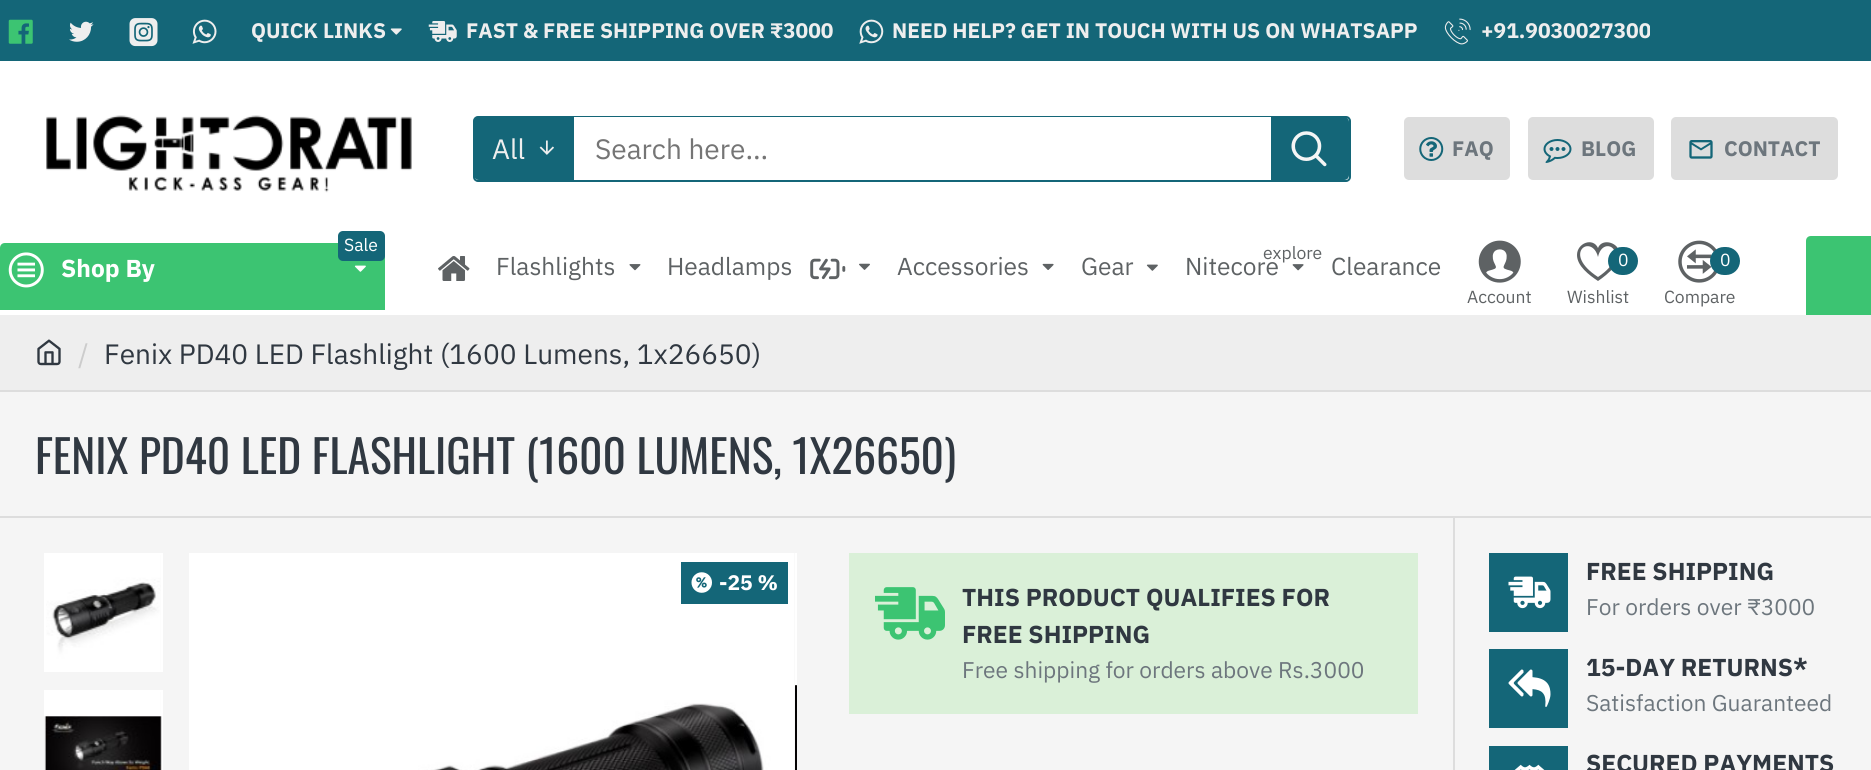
import math
import cairo

surface = cairo.ImageSurface(cairo.FORMAT_RGB24, 1871, 770)
ctx = cairo.Context(surface)
options = cairo.FontOptions()
options.set_hint_metrics(cairo.HINT_METRICS_OFF)
options.set_hint_style(cairo.HINT_STYLE_NONE)
ctx.set_font_options(options)
ctx.set_miter_limit(4)


def set_color(code):
    ctx.set_source_rgb(*(v / 255 for v in bytes.fromhex(code[-6:])))


def draw_text(x, y, s, family, size, color, bold=False, italic=False):
    ctx.select_font_face(family, cairo.FONT_SLANT_ITALIC if italic else cairo.FONT_SLANT_NORMAL, cairo.FONT_WEIGHT_BOLD if bold else cairo.FONT_WEIGHT_NORMAL)
    ctx.set_font_size(size)
    set_color(color)
    ctx.move_to(x, y)
    ctx.show_text(s)


def fill_rect(x, y, w, h, color):
    set_color(color)
    ctx.rectangle(x, y, w, h)
    ctx.fill()


def rounded_rect(x, y, w, h, r):
    ctx.new_sub_path()
    for i, (u, v) in enumerate([(x + w - r, y + h - r), (x + r, y + h - r), (x + r, y + r), (x + w - r, y + r)]):
        ctx.arc(u, v, r, i * math.pi / 2, (i + 1) * math.pi / 2)
    ctx.close_path()


def draw_image(path, x, y, w, h):
    ctx.save()
    ctx.set_source_surface(cairo.ImageSurface.create_from_png(path), x, y)
    ctx.rectangle(x, y, w, h)
    ctx.fill()
    ctx.restore()


set_color("#f5f5f5")
ctx.paint()
fill_rect(0, 61, 1871, 254, "#ffffff")
fill_rect(0, 0, 1871, 61, "#146678")
draw_image("assets/img1.png", 8, 19, 25, 25)
draw_image("assets/img2.png", 69, 21, 25, 21)
draw_image("assets/img3.png", 129, 18, 29, 29)
draw_image("assets/img4.png", 192, 19, 25, 25)
draw_text(251, 38, "QUICK LINKS", "IBM Plex Sans", 21, "#eeeeee", bold=True)
draw_image("assets/img5.png", 390, 28, 12, 7)
draw_image("assets/img6.png", 428, 21, 29, 21)
draw_text(466, 38, "FAST & FREE SHIPPING OVER ₹3000", "IBM Plex Sans", 21, "#eeeeee", bold=True)
draw_image("assets/img7.png", 859, 19, 25, 25)
draw_text(892, 38, "NEED HELP? GET IN TOUCH WITH US ON WHATSAPP", "IBM Plex Sans", 21, "#eeeeee", bold=True)
draw_image("assets/img8.png", 1444, 18, 27, 27)
ctx.save()
ctx.rectangle(1481, 16, 169, 31)
ctx.clip()
draw_text(1481, 38, "+91.9030027300", "IBM Plex Sans", 21, "#eeeeee", bold=True)
ctx.restore()
draw_image("assets/img9.png", 46, 115, 366, 78)
rounded_rect(474, 117, 876, 64, 4)
set_color("#146678")
ctx.stroke()
ctx.new_path()
ctx.move_to(479, 117)
ctx.line_to(574, 117)
ctx.line_to(574, 180)
ctx.line_to(479, 180)
ctx.curve_to(476, 180, 474, 178, 474, 175)
ctx.line_to(474, 122)
ctx.curve_to(474, 119, 476, 117, 479, 117)
ctx.close_path()
ctx.fill()
draw_text(492, 159, "All", "IBM Plex Sans", 28, "#eeeeee")
draw_image("assets/img10.png", 539, 140, 15, 15)
fill_rect(574, 117, 697, 1, "#ffffff")
draw_text(595, 159, "Search here...", "IBM Plex Sans", 28, "#757575")
set_color("#146678")
ctx.new_path()
ctx.move_to(1271, 117)
ctx.line_to(1344, 117)
ctx.curve_to(1347, 117, 1349, 119, 1349, 122)
ctx.line_to(1349, 175)
ctx.curve_to(1349, 178, 1347, 180, 1344, 180)
ctx.line_to(1271, 180)
ctx.close_path()
ctx.fill()
draw_image("assets/img11.png", 1291, 131, 36, 36)
set_color("#dddddd")
rounded_rect(1404, 117, 106, 63, 5)
ctx.fill()
draw_image("assets/img12.png", 1419, 137, 25, 24)
draw_text(1452, 156, "FAQ", "IBM Plex Sans", 21, "#6d767d", bold=True)
set_color("#dddddd")
rounded_rect(1528, 117, 126, 63, 5)
ctx.fill()
draw_image("assets/img13.png", 1543, 139, 29, 24)
draw_text(1581, 156, "BLOG", "IBM Plex Sans", 21, "#6d767d", bold=True)
set_color("#dddddd")
rounded_rect(1671, 117, 167, 63, 5)
ctx.fill()
draw_image("assets/img14.png", 1689, 140, 24, 19)
draw_text(1724, 156, "CONTACT", "IBM Plex Sans", 21, "#6d767d", bold=True)
set_color("#3cc472")
ctx.new_path()
ctx.move_to(5, 243)
ctx.line_to(380, 243)
ctx.curve_to(383, 243, 385, 245, 385, 248)
ctx.line_to(385, 310)
ctx.line_to(0, 310)
ctx.line_to(0, 248)
ctx.curve_to(0, 245, 2, 243, 5, 243)
ctx.close_path()
ctx.fill()
set_color("#146678")
rounded_rect(338, 231, 47, 30, 5)
ctx.fill()
draw_text(344, 251, "Sale", "IBM Plex Sans", 17.5, "#ffffff")
draw_image("assets/img15.png", 8, 252, 36, 36)
draw_text(61, 277, "Shop By", "IBM Plex Sans", 24.5, "#ffffff", bold=True)
draw_image("assets/img16.png", 354, 265, 12, 7)
draw_image("assets/img17.png", 438, 256, 32, 25)
draw_text(496, 275, "Flashlights", "IBM Plex Sans", 24.5, "#5e6264")
draw_image("assets/img18.png", 629, 264, 12, 7)
draw_text(667, 275, "Headlamps", "IBM Plex Sans", 24.5, "#5e6264")
draw_image("assets/img19.png", 810, 258, 36, 22)
draw_image("assets/img20.png", 859, 263, 11, 7)
draw_text(897, 275, "Accessories", "IBM Plex Sans", 24.5, "#5e6264")
draw_image("assets/img21.png", 1042, 263, 12, 7)
draw_text(1081, 275, "Gear", "IBM Plex Sans", 24.5, "#5e6264")
draw_image("assets/img22.png", 1146, 264, 12, 7)
draw_text(1185, 275, "Nitecore", "IBM Plex Sans", 24.5, "#5e6264")
draw_text(1263, 259, "explore", "IBM Plex Sans", 17.5, "#5e6264")
draw_image("assets/img23.png", 1292, 264, 12, 7)
draw_text(1331, 275, "Clearance", "IBM Plex Sans", 24.5, "#5e6264")
draw_image("assets/img24.png", 1478, 240, 43, 43)
draw_text(1467, 303, "Account", "IBM Plex Sans", 17.5, "#5e6264")
ctx.new_path()
ctx.move_to(1598, 257)
ctx.curve_to(1603, 233, 1634, 253, 1598, 277)
ctx.curve_to(1561, 253, 1592, 233, 1598, 257)
ctx.close_path()
ctx.move_to(1577, 255)
ctx.curve_to(1577, 266, 1589, 275, 1598, 281)
ctx.curve_to(1607, 275, 1626, 260, 1617, 247)
ctx.curve_to(1612, 241, 1601, 240, 1598, 248)
ctx.curve_to(1593, 237, 1577, 243, 1577, 255)
ctx.close_path()
ctx.fill()
set_color("#146678")
rounded_rect(1608, 247, 30, 28, 14)
ctx.fill()
draw_text(1618, 266, "0", "IBM Plex Sans", 17.5, "#ffffff")
draw_text(1567, 303, "Wishlist", "IBM Plex Sans", 17.5, "#5e6264")
draw_image("assets/img25.png", 1678, 240, 39, 43)
set_color("#146678")
rounded_rect(1710, 247, 30, 28, 14)
ctx.fill()
draw_text(1720, 266, "0", "IBM Plex Sans", 17.5, "#ffffff")
draw_text(1664, 303, "Compare", "IBM Plex Sans", 17.5, "#5e6264")
set_color("#3cc472")
ctx.new_path()
ctx.move_to(1811, 236)
ctx.line_to(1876, 236)
ctx.line_to(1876, 315)
ctx.line_to(1806, 315)
ctx.line_to(1806, 241)
ctx.curve_to(1806, 238, 1808, 236, 1811, 236)
ctx.close_path()
ctx.fill()
fill_rect(0, 315, 1871, 75, "#eeeeee")
fill_rect(0, 390, 1871, 2, "#dddddd")
draw_image("assets/img26.png", 37, 339, 24, 27)
draw_text(78, 364, "/", "IBM Plex Sans", 28, "#cccccc")
draw_text(104, 364, "Fenix PD40 LED Flashlight (1600 Lumens, 1x26650)", "IBM Plex Sans", 28, "#303841")
fill_rect(0, 516, 1871, 2, "#dddddd")
draw_text(35, 474, "FENIX PD40 LED FLASHLIGHT (1600 LUMENS, 1X26650)", "Oswald", 45.5, "#303841")
ctx.rectangle(45, 554, 117, 117)
set_color("#ffffff")
ctx.stroke()
draw_image("assets/img27.png", 46, 555, 115, 115)
ctx.rectangle(45, 691, 117, 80)
ctx.stroke()
draw_image("assets/img28.png", 44, 692, 118, 78)
draw_image("assets/img29.png", 189, 553, 606, 217)
draw_image("assets/img30.png", 795, 553, 2, 217)
fill_rect(681, 562, 107, 42, "#146678")
draw_image("assets/img31.png", 691, 572, 21, 21)
draw_text(719, 590, "-25 %", "IBM Plex Sans", 21, "#ffffff", bold=True)
fill_rect(849, 553, 569, 161, "#daf0d8")
draw_image("assets/img32.png", 875, 587, 70, 53)
draw_text(962, 606, "THIS PRODUCT QUALIFIES FOR", "IBM Plex Sans", 24.5, "#303841", bold=True)
draw_text(962, 643, "FREE SHIPPING", "IBM Plex Sans", 24.5, "#303841", bold=True)
draw_text(962, 678, "Free shipping for orders above Rs.3000", "IBM Plex Sans", 22.75, "#6d767d")
fill_rect(1453, 518, 2, 252, "#dddddd")
fill_rect(1489, 553, 79, 79, "#146678")
draw_image("assets/img33.png", 1508, 576, 43, 33)
draw_text(1586, 580, "FREE SHIPPING", "IBM Plex Sans", 24.5, "#303841", bold=True)
draw_text(1586, 615, "For orders over ₹3000", "IBM Plex Sans", 22.75, "#6d767d")
fill_rect(1489, 649, 79, 79, "#146678")
draw_image("assets/img34.png", 1508, 669, 43, 38)
draw_text(1586, 676, "15-DAY RETURNS*", "IBM Plex Sans", 24.5, "#303841", bold=True)
draw_text(1586, 711, "Satisfaction Guaranteed", "IBM Plex Sans", 22.75, "#6d767d")
fill_rect(1489, 746, 79, 24, "#146678")
draw_image("assets/img35.png", 1514, 764, 31, 6)
draw_text(1586, 772, "SECURED PAYMENTS", "IBM Plex Sans", 24.5, "#303841", bold=True)
surface.write_to_png("output.png")
